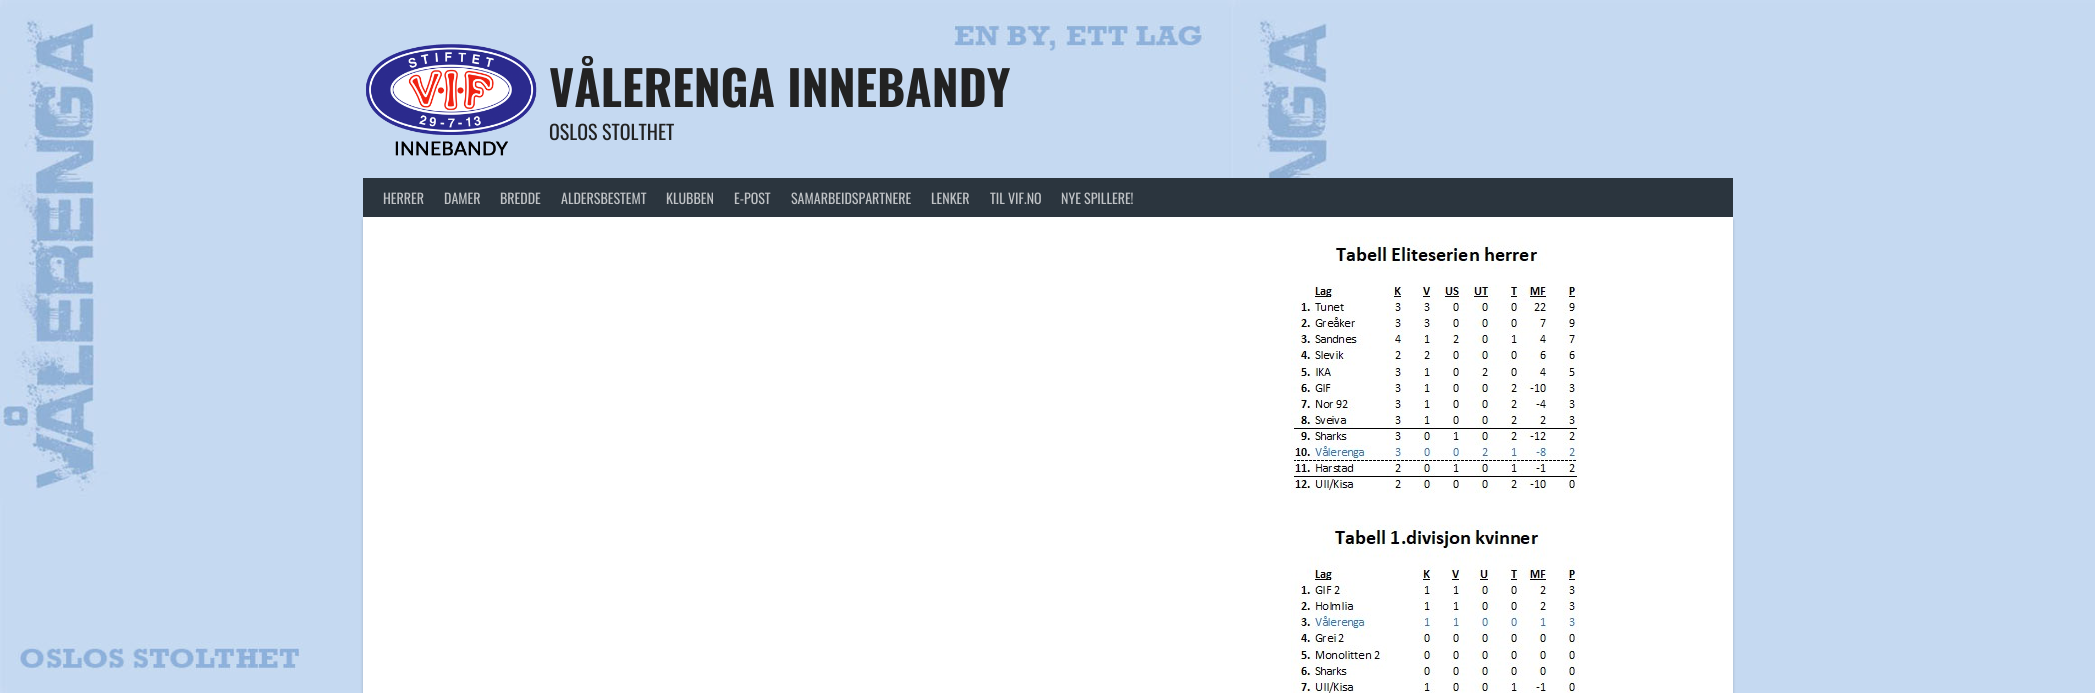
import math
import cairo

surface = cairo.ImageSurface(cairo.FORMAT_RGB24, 2095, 693)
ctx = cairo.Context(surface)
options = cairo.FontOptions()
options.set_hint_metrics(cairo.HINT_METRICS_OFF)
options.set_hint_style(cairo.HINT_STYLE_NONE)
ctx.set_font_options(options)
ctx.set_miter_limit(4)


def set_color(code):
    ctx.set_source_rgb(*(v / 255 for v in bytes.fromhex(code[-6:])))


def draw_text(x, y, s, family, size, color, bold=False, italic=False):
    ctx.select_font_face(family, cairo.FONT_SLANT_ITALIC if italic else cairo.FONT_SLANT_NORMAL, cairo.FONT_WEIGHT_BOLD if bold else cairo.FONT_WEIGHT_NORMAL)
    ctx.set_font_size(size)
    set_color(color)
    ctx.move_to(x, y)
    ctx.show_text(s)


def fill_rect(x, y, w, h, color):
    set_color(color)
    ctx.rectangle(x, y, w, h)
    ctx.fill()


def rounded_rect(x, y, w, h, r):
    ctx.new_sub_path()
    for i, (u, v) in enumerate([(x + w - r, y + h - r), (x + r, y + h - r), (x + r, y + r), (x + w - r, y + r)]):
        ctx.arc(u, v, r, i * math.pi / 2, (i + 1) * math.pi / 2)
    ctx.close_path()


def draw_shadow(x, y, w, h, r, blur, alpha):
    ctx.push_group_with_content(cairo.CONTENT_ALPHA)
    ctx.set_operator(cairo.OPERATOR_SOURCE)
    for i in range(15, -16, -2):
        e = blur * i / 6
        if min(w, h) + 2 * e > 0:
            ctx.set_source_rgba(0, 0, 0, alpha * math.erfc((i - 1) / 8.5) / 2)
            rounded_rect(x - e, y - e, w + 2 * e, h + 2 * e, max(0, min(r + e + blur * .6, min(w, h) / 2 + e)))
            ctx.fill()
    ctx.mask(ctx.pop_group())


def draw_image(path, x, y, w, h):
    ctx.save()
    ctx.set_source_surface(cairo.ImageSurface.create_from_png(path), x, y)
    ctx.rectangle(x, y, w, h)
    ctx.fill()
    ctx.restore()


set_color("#ffffff")
ctx.paint()
draw_image("assets/img1.png", 0, 0, 2095, 693)
draw_image("assets/img2.png", 366, 44, 171, 112)
ctx.save()
ctx.rectangle(549, 56, 1184, 90)
ctx.clip()
draw_text(549, 107, "VÅLERENGA INNEBANDY", "Oswald", 48, "#222222", bold=True)
ctx.restore()
draw_text(549, 140, "OSLOS STOLTHET", "Oswald", 20, "#222222")
set_color("#000000")
draw_shadow(363, 220, 1370, 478, 0, 1.5, 0.2)
fill_rect(363, 178, 1370, 39, "#2b353e")
draw_text(383, 204, "HERRER", "Oswald", 14, "#bfc2c5")
draw_text(444, 204, "DAMER", "Oswald", 14, "#bfc2c5")
draw_text(500, 204, "BREDDE", "Oswald", 14, "#bfc2c5")
draw_text(561, 204, "ALDERSBESTEMT", "Oswald", 14, "#bfc2c5")
draw_text(666, 204, "KLUBBEN", "Oswald", 14, "#bfc2c5")
draw_text(734, 204, "E-POST", "Oswald", 14, "#bfc2c5")
draw_text(791, 204, "SAMARBEIDSPARTNERE", "Oswald", 14, "#bfc2c5")
draw_text(931, 204, "LENKER", "Oswald", 14, "#bfc2c5")
draw_text(990, 204, "TIL VIF.NO", "Oswald", 14, "#bfc2c5")
draw_text(1061, 204, "NYE SPILLERE!", "Oswald", 14, "#bfc2c5")
fill_rect(363, 217, 1370, 476, "#ffffff")
draw_image("assets/img3.png", 1291, 237, 288, 456)
surface.write_to_png("output.png")
